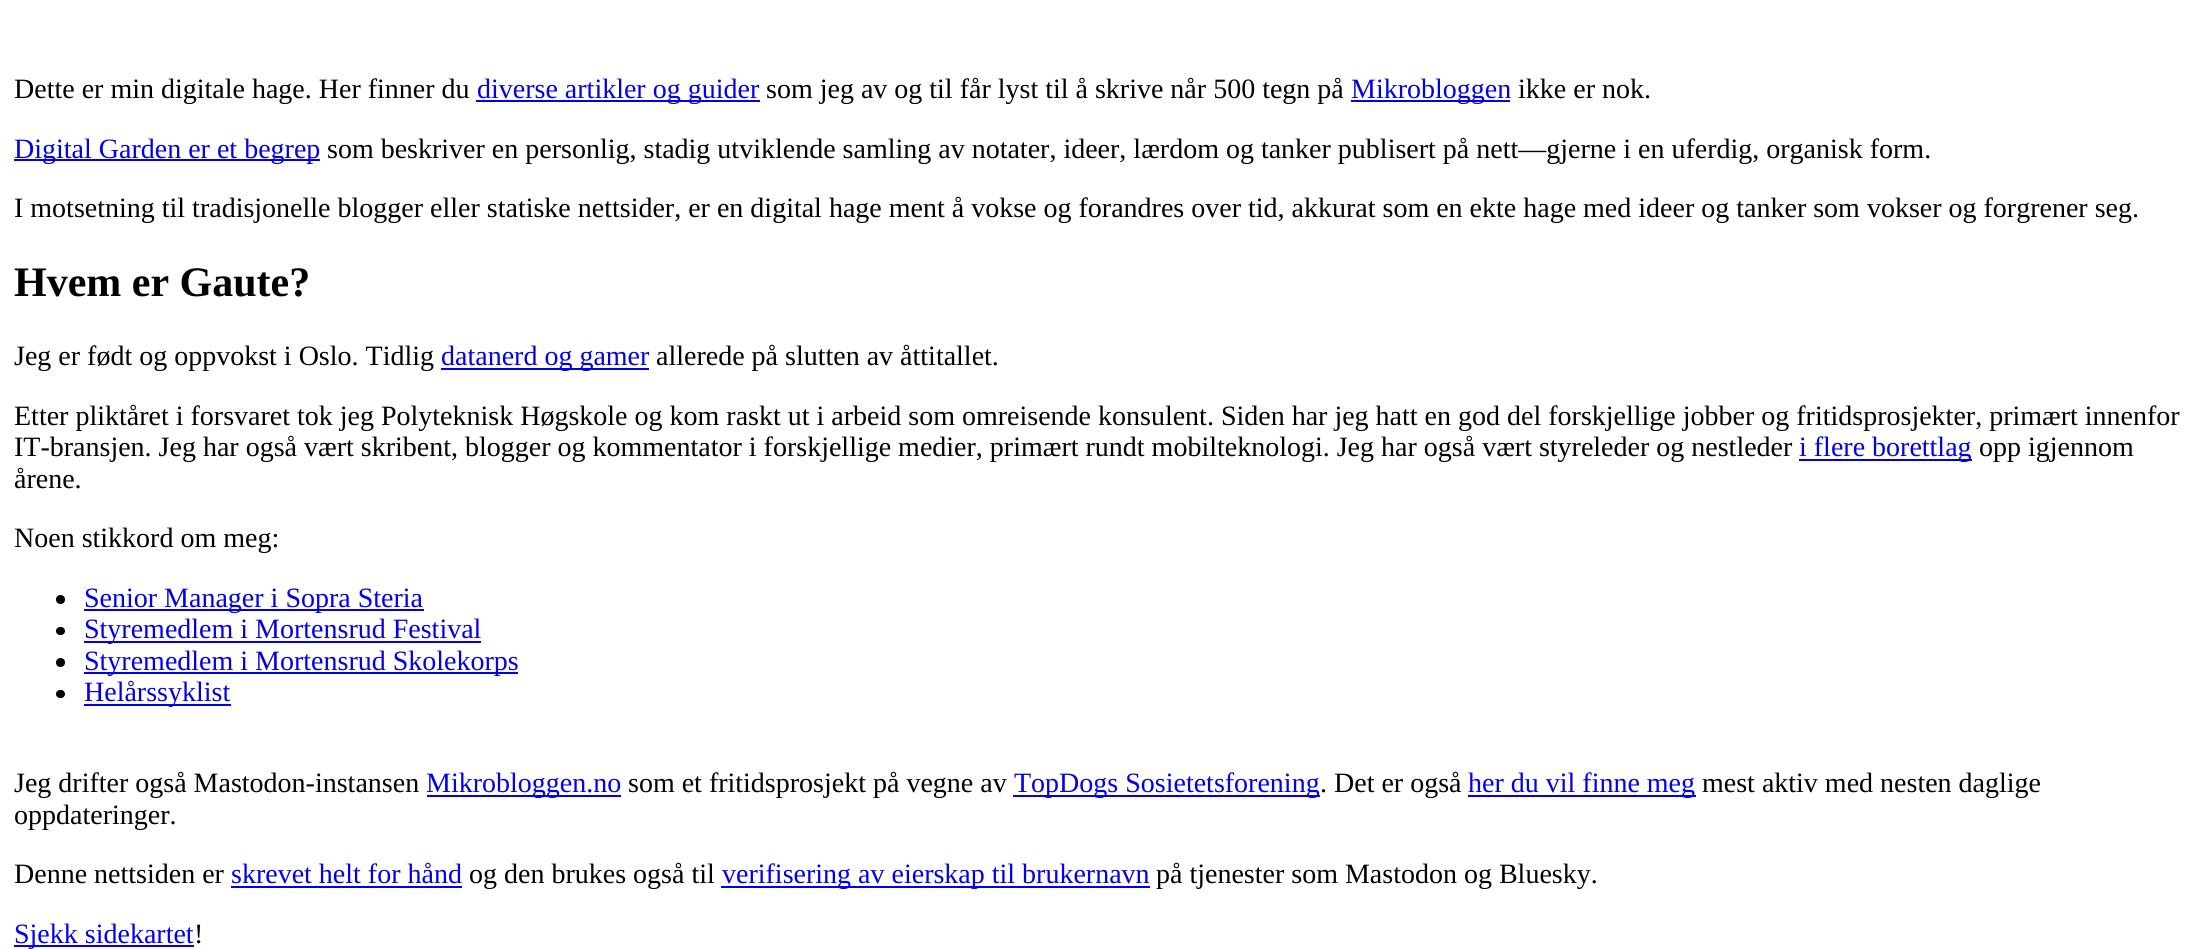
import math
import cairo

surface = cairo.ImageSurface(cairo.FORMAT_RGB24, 2209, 949)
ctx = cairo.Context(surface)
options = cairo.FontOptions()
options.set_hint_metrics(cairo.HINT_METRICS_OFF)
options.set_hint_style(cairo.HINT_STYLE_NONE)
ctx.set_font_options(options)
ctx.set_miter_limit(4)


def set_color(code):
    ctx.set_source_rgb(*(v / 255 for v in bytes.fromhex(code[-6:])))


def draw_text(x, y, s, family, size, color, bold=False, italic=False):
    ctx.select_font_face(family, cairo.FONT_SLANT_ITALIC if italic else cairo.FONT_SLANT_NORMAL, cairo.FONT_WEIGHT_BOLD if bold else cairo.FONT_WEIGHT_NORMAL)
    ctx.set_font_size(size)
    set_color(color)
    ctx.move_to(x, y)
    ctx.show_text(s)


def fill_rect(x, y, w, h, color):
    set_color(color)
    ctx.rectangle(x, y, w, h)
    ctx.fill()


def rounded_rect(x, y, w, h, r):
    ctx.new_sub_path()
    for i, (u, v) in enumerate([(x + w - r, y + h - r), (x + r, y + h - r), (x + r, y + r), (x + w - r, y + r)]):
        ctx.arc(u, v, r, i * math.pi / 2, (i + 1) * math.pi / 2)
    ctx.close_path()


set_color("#ffffff")
ctx.paint()
draw_text(14, 98, "Dette er min digitale hage. Her finner du", "Liberation Serif", 28, "#000000")
fill_rect(476, 100, 284, 2, "#0000ee")
draw_text(477, 98, "diverse artikler og guider", "Liberation Serif", 28, "#0000ee")
draw_text(766, 98, "som jeg av og til får lyst til å skrive når 500 tegn på", "Liberation Serif", 28, "#000000")
fill_rect(1351, 100, 159, 2, "#0000ee")
draw_text(1351, 98, "Mikrobloggen", "Liberation Serif", 28, "#0000ee")
draw_text(1518, 98, "ikke er nok.", "Liberation Serif", 28, "#000000")
fill_rect(14, 159, 306, 2, "#0000ee")
draw_text(14, 158, "Digital Garden er et begrep", "Liberation Serif", 28, "#0000ee")
draw_text(327, 158, "som beskriver en personlig, stadig utviklende samling av notater, ideer, lærdom og tanker publisert på nett—gjerne i en uferdig, organisk form.", "Liberation Serif", 28, "#000000")
draw_text(14, 217, "I motsetning til tradisjonelle blogger eller statiske nettsider, er en digital hage ment å vokse og forandres over tid, akkurat som en ekte hage med ideer og tanker som vokser og forgrener seg.", "Liberation Serif", 28, "#000000")
draw_text(14, 296, "Hvem er Gaute?", "Liberation Serif", 42, "#000000", bold=True)
draw_text(14, 365, "Jeg er født og oppvokst i Oslo. Tidlig", "Liberation Serif", 28, "#000000")
fill_rect(441, 368, 208, 2, "#0000ee")
draw_text(441, 365, "datanerd og gamer", "Liberation Serif", 28, "#0000ee")
draw_text(656, 365, "allerede på slutten av åttitallet.", "Liberation Serif", 28, "#000000")
draw_text(14, 425, "Etter pliktåret i forsvaret tok jeg Polyteknisk Høgskole og kom raskt ut i arbeid som omreisende konsulent. Siden har jeg hatt en god del forskjellige jobber og fritidsprosjekter, primært innenfor", "Liberation Serif", 28, "#000000")
draw_text(14, 456, "IT-bransjen. Jeg har også vært skribent, blogger og kommentator i forskjellige medier, primært rundt mobilteknologi. Jeg har også vært styreleder og nestleder", "Liberation Serif", 28, "#000000")
fill_rect(1799, 459, 173, 2, "#0000ee")
draw_text(1799, 456, "i flere borettlag", "Liberation Serif", 28, "#0000ee")
draw_text(1979, 456, "opp igjennom", "Liberation Serif", 28, "#000000")
draw_text(14, 488, "årene.", "Liberation Serif", 28, "#000000")
draw_text(14, 547, "Noen stikkord om meg:", "Liberation Serif", 28, "#000000")
ctx.new_path()
ctx.arc(60.5, 599.5, 4.5, 0, 2 * math.pi)
ctx.fill()
fill_rect(84, 609, 340, 2, "#0000ee")
draw_text(84, 607, "Senior Manager i Sopra Steria", "Liberation Serif", 28, "#0000ee")
set_color("#000000")
rounded_rect(56, 627, 9, 8, 4)
ctx.fill()
fill_rect(84, 641, 397, 2, "#0000ee")
draw_text(84, 638, "Styremedlem i Mortensrud Festival", "Liberation Serif", 28, "#0000ee")
set_color("#000000")
ctx.new_path()
ctx.arc(60.5, 662.5, 4.5, 0, 2 * math.pi)
ctx.fill()
fill_rect(84, 672, 434, 2, "#0000ee")
draw_text(84, 670, "Styremedlem i Mortensrud Skolekorps", "Liberation Serif", 28, "#0000ee")
set_color("#000000")
rounded_rect(56, 690, 9, 8, 4)
ctx.fill()
fill_rect(84, 704, 147, 2, "#0000ee")
draw_text(84, 701, "Helårssyklist", "Liberation Serif", 28, "#0000ee")
draw_text(14, 792, "Jeg drifter også Mastodon-instansen", "Liberation Serif", 28, "#000000")
fill_rect(427, 795, 194, 2, "#0000ee")
draw_text(426, 792, "Mikrobloggen.no", "Liberation Serif", 28, "#0000ee")
draw_text(628, 792, "som et fritidsprosjekt på vegne av", "Liberation Serif", 28, "#000000")
fill_rect(1013, 795, 307, 2, "#0000ee")
draw_text(1014, 792, "TopDogs Sosietetsforening", "Liberation Serif", 28, "#0000ee")
draw_text(1320, 792, ". Det er også", "Liberation Serif", 28, "#000000")
fill_rect(1468, 795, 228, 2, "#0000ee")
draw_text(1468, 792, "her du vil finne meg", "Liberation Serif", 28, "#0000ee")
draw_text(1702, 792, "mest aktiv med nesten daglige", "Liberation Serif", 28, "#000000")
draw_text(14, 824, "oppdateringer.", "Liberation Serif", 28, "#000000")
draw_text(14, 883, "Denne nettsiden er", "Liberation Serif", 28, "#000000")
draw_text(231, 883, "skrevet helt for hånd", "Liberation Serif", 28, "#0000ee")
fill_rect(231, 886, 231, 2, "#0000ee")
draw_text(469, 883, "og den brukes også til", "Liberation Serif", 28, "#000000")
fill_rect(721, 886, 429, 2, "#0000ee")
draw_text(722, 883, "verifisering av eierskap til brukernavn", "Liberation Serif", 28, "#0000ee")
draw_text(1156, 883, "på tjenester som Mastodon og Bluesky.", "Liberation Serif", 28, "#000000")
fill_rect(14, 945, 180, 2, "#0000ee")
draw_text(14, 943, "Sjekk sidekartet", "Liberation Serif", 28, "#0000ee")
draw_text(194, 943, "!", "Liberation Serif", 28, "#000000")
surface.write_to_png("output.png")
